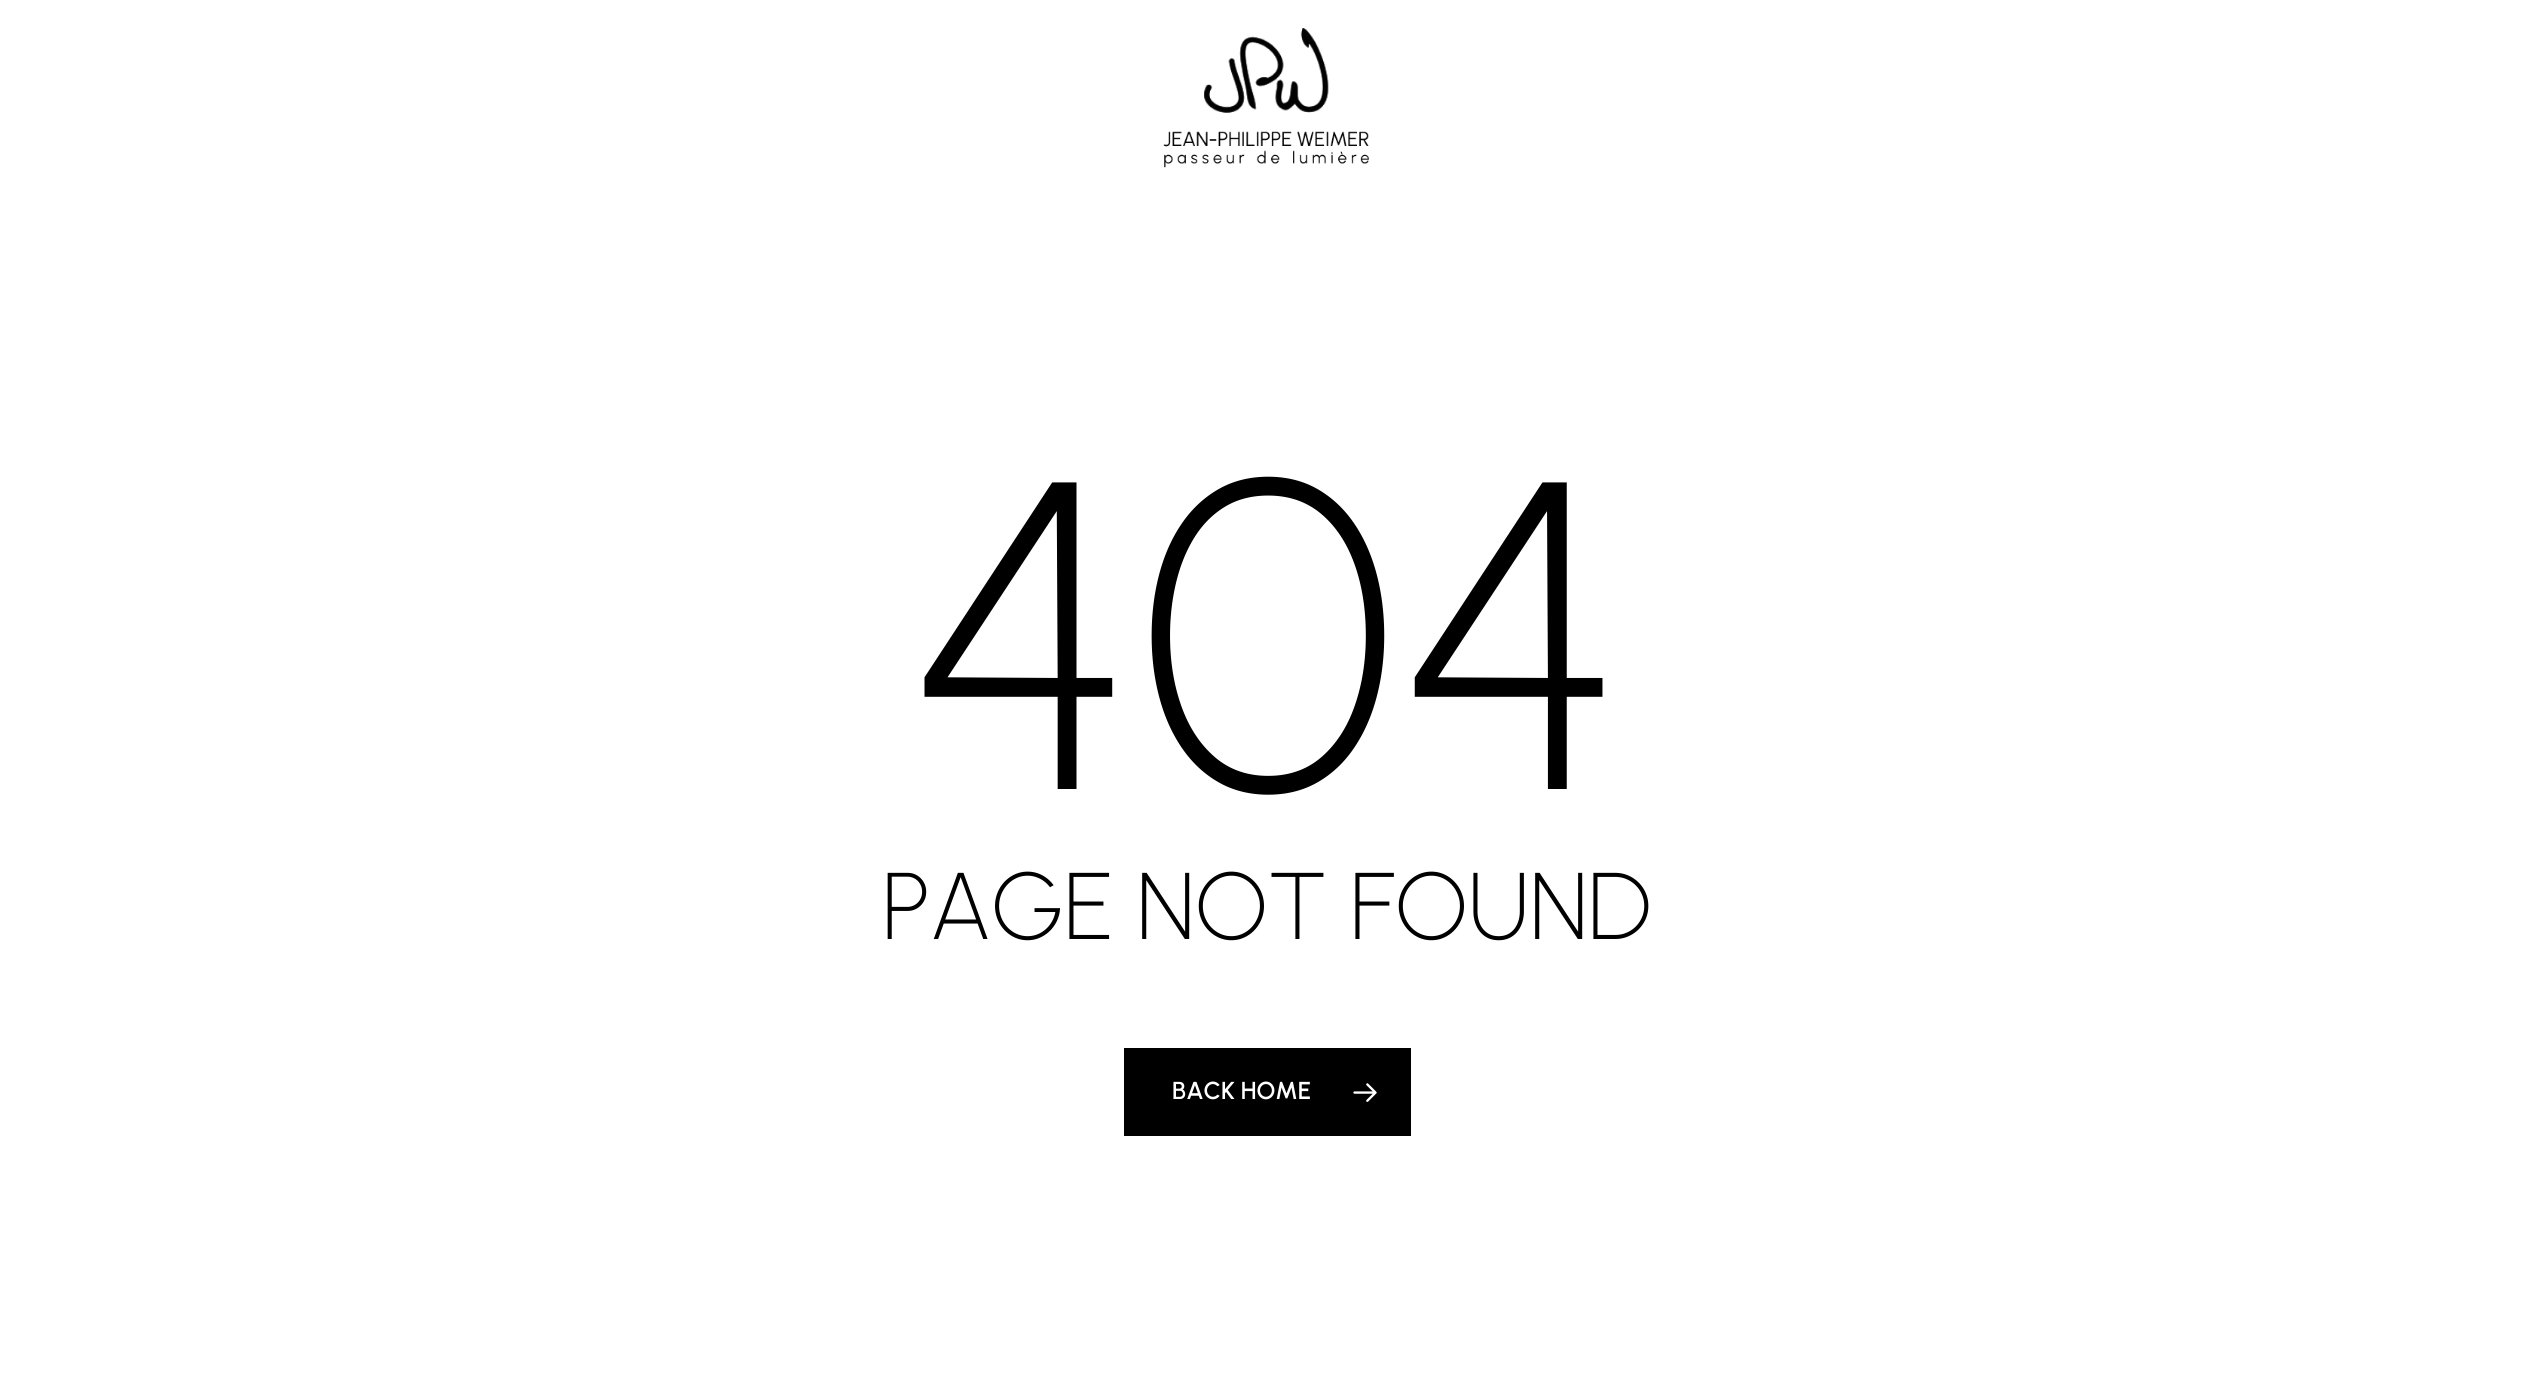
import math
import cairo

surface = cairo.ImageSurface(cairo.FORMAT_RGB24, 2534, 1373)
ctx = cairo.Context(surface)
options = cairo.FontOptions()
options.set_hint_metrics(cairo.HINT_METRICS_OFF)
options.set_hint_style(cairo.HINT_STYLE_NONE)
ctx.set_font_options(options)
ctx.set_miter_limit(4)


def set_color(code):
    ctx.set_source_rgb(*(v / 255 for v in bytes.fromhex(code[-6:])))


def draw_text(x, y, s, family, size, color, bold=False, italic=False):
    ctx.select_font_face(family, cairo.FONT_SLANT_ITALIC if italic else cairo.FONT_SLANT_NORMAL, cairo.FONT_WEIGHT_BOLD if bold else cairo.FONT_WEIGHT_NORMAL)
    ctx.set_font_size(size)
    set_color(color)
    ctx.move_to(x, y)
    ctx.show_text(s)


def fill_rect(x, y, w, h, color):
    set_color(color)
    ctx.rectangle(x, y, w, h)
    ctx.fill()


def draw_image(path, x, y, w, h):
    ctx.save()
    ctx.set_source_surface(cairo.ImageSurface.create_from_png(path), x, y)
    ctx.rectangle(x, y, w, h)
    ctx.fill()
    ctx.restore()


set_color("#ffffff")
ctx.paint()
draw_image("assets/img1.png", 1163, 28, 206, 140)
draw_text(907, 789, "404", "Urbanist ExtraLight", 438, "#000000")
draw_text(882, 939, "PAGE NOT FOUND", "Urbanist ExtraLight", 94.5, "#000000")
fill_rect(1124, 1048, 287, 88, "#000000")
draw_text(1172, 1099, "BACK HOME", "Urbanist SemiBold", 24.5, "#ffffff")
draw_image("assets/img2.png", 1353, 1083, 24, 19)
surface.write_to_png("output.png")
